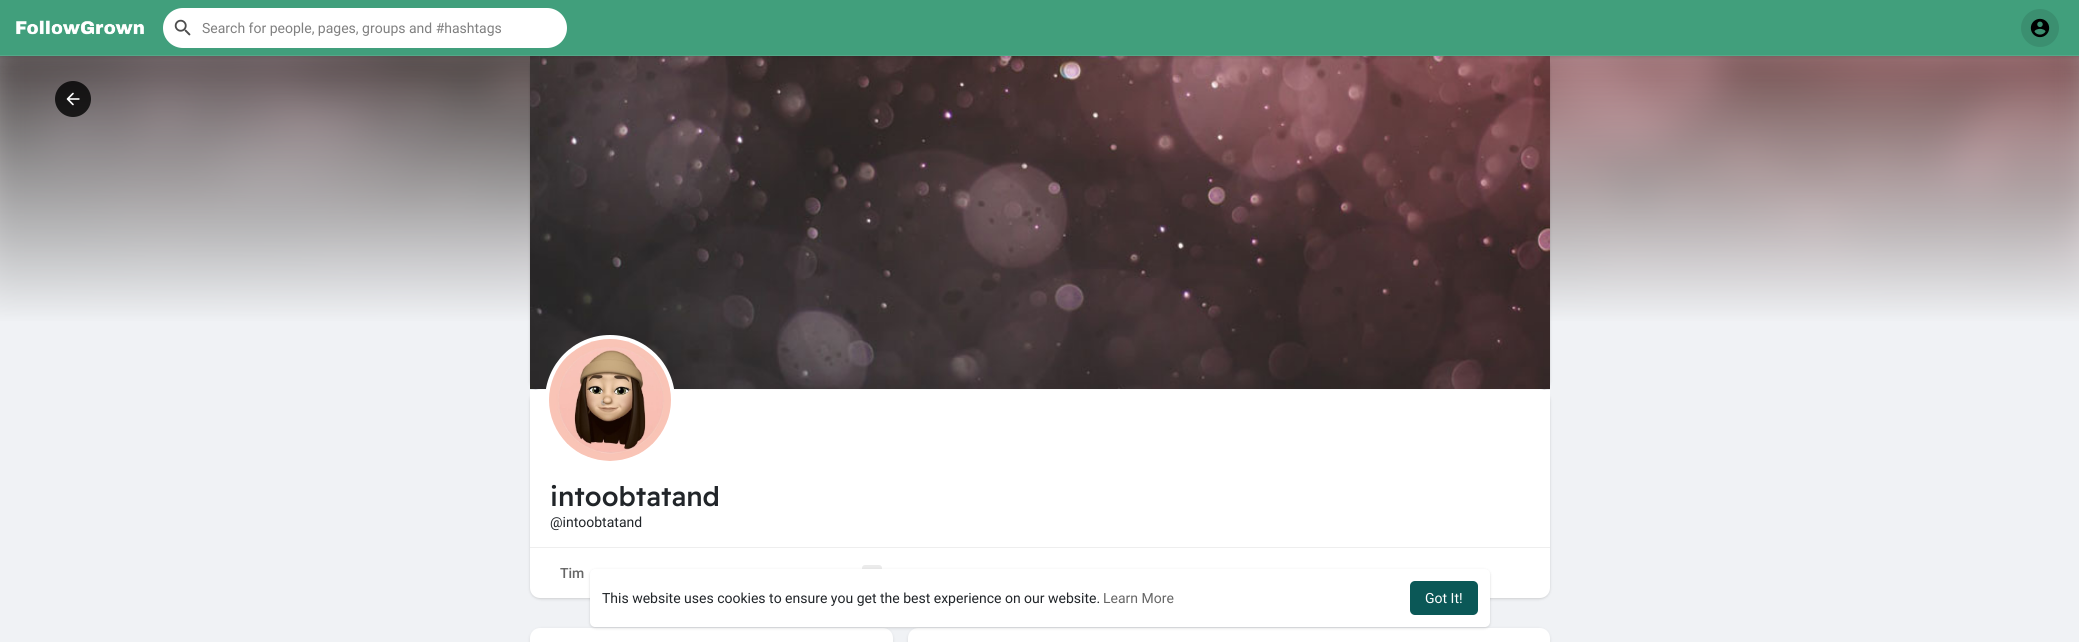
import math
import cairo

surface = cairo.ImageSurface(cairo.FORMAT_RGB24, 2079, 642)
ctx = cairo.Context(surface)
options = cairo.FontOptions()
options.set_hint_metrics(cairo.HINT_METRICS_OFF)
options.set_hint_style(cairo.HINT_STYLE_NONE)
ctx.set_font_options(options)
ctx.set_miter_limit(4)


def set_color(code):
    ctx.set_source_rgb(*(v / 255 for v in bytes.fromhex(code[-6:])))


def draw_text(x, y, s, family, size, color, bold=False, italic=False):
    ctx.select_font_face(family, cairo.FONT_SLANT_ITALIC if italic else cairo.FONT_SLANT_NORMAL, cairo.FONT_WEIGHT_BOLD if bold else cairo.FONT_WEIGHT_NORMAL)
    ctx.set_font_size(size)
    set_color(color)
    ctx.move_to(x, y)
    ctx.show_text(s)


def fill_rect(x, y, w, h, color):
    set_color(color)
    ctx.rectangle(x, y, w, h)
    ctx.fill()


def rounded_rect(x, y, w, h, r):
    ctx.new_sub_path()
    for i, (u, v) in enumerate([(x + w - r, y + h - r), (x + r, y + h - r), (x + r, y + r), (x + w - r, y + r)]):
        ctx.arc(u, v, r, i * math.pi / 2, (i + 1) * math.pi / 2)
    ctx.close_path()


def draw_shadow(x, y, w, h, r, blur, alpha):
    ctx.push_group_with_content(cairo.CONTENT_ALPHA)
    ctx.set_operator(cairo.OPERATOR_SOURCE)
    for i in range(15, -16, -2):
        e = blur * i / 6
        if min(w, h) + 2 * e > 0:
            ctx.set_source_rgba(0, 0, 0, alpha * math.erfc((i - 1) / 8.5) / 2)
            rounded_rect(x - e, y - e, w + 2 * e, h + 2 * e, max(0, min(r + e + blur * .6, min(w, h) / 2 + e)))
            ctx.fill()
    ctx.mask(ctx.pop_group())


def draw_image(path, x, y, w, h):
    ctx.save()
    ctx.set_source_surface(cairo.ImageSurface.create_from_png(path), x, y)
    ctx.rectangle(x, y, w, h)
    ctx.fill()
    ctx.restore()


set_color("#f0f2f5")
ctx.paint()
draw_image("assets/img6.png", 0, 56, 2079, 265)
gradient = cairo.LinearGradient(1040, 56, 1040, 390)
gradient.add_color_stop_rgba(0, 1, 1, 1, 0.1)
gradient.add_color_stop_rgba(0.8, 0.941, 0.949, 0.961, 1)
gradient.add_color_stop_rgba(1, 0.941, 0.949, 0.961, 1)
ctx.set_source(gradient)
ctx.rectangle(0, 56, 2079, 265)
ctx.fill()
set_color("#000000")
draw_shadow(530, 57, 1020, 334, 10, 1, 0.06)
draw_shadow(530, 57, 1020, 334, 10, 1.5, 0.1)
fill_rect(0, 0, 2079, 56, "#419f7c")
draw_image("assets/img1.png", 16, 20, 128, 15)
set_color("#ffffff")
rounded_rect(163, 8, 404, 40, 20)
ctx.fill()
draw_image("assets/img2.png", 174, 19, 17, 17)
draw_text(202, 33, "Search for people, pages, groups and #hashtags", "Roboto", 14, "#808080")
set_color("#ffffff")
rounded_rect(530, 56, 1020, 334, 10)
ctx.fill()
draw_image("assets/img5.png", 530, 56, 1020, 333)
draw_image("assets/img3.png", 0, 55, 2079, 4)
set_color("#3b8f70")
ctx.arc(2040, 28, 19, 0, 2 * math.pi)
ctx.fill()
draw_image("assets/img4.png", 2030, 18, 20, 20)
ctx.set_source_rgba(0, 0, 0, 0.8)
ctx.arc(73, 99, 18, 0, 2 * math.pi)
ctx.fill()
draw_image("assets/img7.png", 66, 92, 14, 14)
set_color("#000000")
draw_shadow(530, 391, 1020, 208, 10, 1, 0.06)
draw_shadow(530, 391, 1020, 208, 10, 1.5, 0.1)
set_color("#ffffff")
ctx.new_path()
ctx.move_to(530, 390)
ctx.line_to(1550, 390)
ctx.line_to(1550, 588)
ctx.curve_to(1550, 593.5, 1545.5, 598, 1540, 598)
ctx.line_to(540, 598)
ctx.curve_to(534.5, 598, 530, 593.5, 530, 588)
ctx.close_path()
ctx.fill()
ctx.arc(610, 400, 65, 0, 2 * math.pi)
ctx.fill()
draw_image("assets/img8.png", 549, 339, 122, 122)
draw_text(550, 506, "intoobtatand", "Readex Pro Medium", 27, "#212529")
draw_text(550, 527, "@intoobtatand", "Roboto", 14, "#212529")
fill_rect(530, 547, 1020, 1, "#eeeeee")
draw_text(560, 578, "Tim", "Roboto Medium", 14, "#666666")
set_color("#ebebeb")
rounded_rect(862, 565, 20, 17, 3)
ctx.fill()
set_color("#000000")
draw_shadow(530, 629, 363, 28, 10, 1.5, 0.1)
set_color("#ffffff")
rounded_rect(530, 628, 363, 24, 10)
ctx.fill()
set_color("#000000")
draw_shadow(908, 629, 642, 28, 10, 1.5, 0.1)
set_color("#ffffff")
rounded_rect(908, 628, 642, 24, 10)
ctx.fill()
set_color("#000000")
draw_shadow(590, 570, 900, 58, 5, 1, 0.06)
draw_shadow(590, 570, 900, 58, 5, 1.5, 0.1)
set_color("#ffffff")
rounded_rect(590, 569, 900, 58, 5)
ctx.fill()
draw_text(602, 603, "This website uses cookies to ensure you get the best experience on our website.", "Roboto", 14, "#212529")
draw_text(1103, 603, "Learn More", "Roboto", 14, "#666666")
set_color("#0b5857")
rounded_rect(1410, 581, 68, 34, 5)
ctx.fill()
draw_text(1425, 603, "Got It!", "Roboto", 14, "#ffffff")
surface.write_to_png("output.png")
